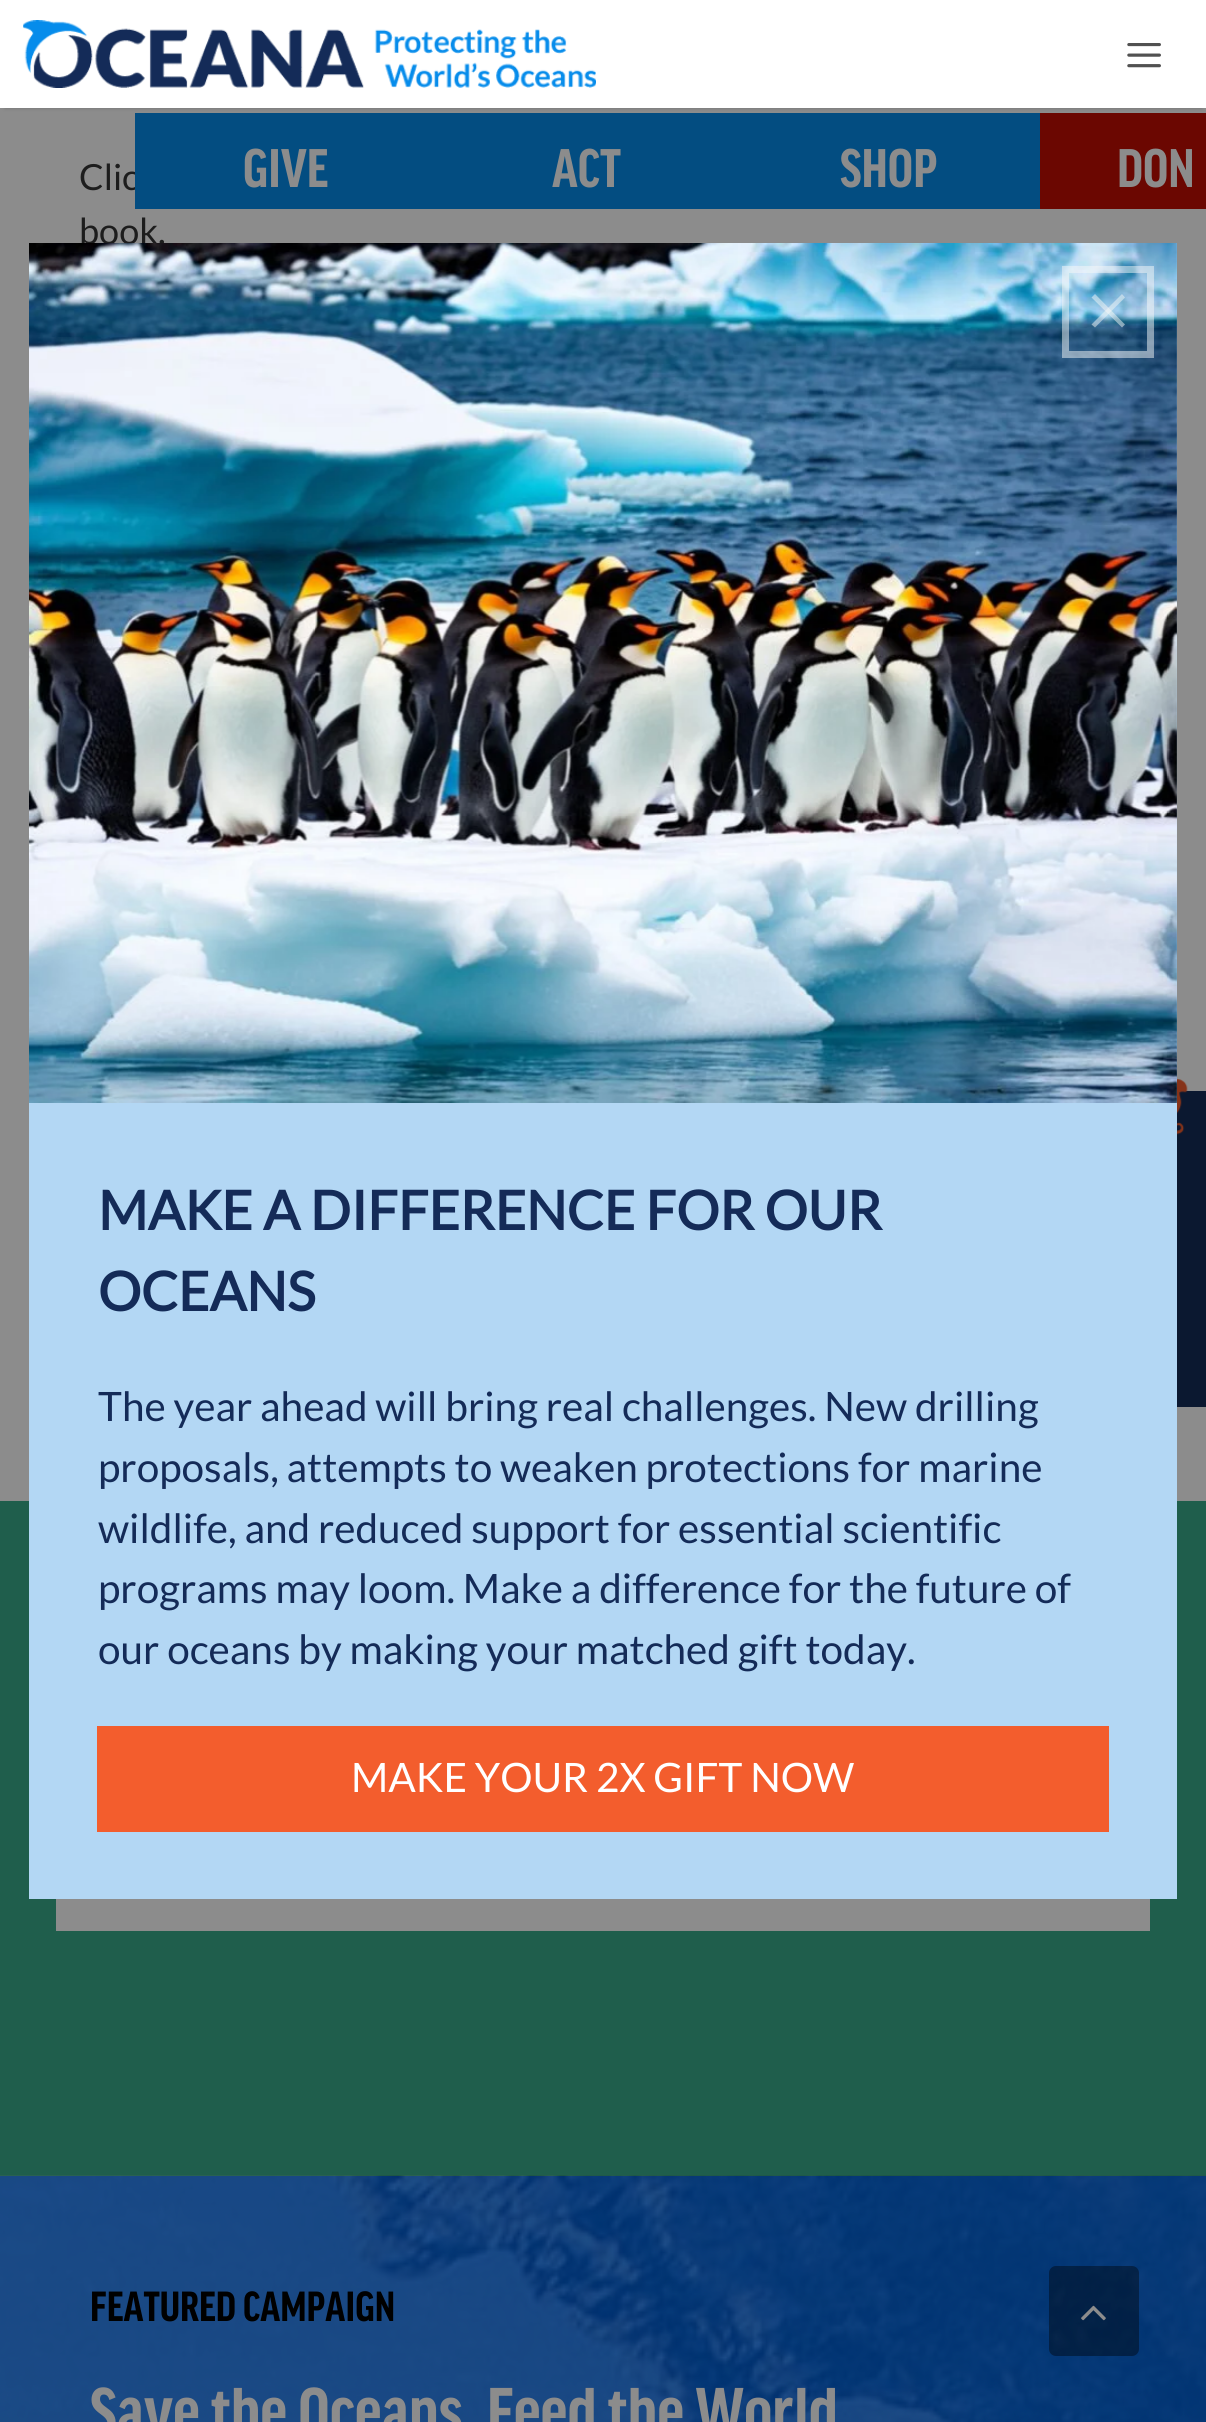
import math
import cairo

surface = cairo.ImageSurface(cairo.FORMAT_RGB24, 1206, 2422)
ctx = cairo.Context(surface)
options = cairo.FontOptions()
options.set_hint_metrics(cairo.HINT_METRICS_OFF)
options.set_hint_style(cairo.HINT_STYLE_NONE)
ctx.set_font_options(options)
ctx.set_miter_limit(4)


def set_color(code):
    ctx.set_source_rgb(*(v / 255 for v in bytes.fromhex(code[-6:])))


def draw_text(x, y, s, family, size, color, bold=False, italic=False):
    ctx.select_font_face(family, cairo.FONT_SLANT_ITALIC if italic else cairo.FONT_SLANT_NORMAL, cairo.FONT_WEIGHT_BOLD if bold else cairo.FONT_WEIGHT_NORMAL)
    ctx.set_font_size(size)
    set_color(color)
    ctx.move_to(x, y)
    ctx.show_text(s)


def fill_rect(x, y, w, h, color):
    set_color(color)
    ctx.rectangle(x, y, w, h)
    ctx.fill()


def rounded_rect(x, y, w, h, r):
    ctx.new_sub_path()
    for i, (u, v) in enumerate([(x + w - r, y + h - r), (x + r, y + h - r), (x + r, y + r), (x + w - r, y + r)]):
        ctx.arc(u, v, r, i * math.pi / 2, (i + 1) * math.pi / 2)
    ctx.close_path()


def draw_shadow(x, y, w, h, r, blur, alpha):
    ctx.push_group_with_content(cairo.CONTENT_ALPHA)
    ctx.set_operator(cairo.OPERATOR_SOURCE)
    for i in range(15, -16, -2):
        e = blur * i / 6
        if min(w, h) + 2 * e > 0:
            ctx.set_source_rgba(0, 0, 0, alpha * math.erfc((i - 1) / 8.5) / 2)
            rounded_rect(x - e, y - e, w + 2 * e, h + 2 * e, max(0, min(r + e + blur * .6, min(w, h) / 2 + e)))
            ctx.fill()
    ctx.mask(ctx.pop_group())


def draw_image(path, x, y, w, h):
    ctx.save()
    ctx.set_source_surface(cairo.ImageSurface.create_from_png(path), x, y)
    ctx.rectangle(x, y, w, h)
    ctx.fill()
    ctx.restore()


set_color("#8c8c8c")
ctx.paint()
draw_text(79, 190, "Clic", "Lato", 36, "#1d1d1d")
fill_rect(135, 113, 905, 96, "#034d81")
fill_rect(1040, 113, 166, 96, "#6b0701")
set_color("#000000")
draw_shadow(5, 9, 1197, 99, 0, 2, 0.2)
fill_rect(0, 0, 1206, 108, "#ffffff")
draw_image("assets/img1.png", 23, 20, 573, 68)
draw_image("assets/img2.png", 1127, 43, 34, 25)
draw_text(79, 244, "book.", "Lato", 36, "#1d1d1d")
fill_rect(0, 1501, 1206, 675, "#1f5e4c")
fill_rect(56, 1899, 1094, 32, "#8c8c8c")
draw_text(243, 187, "GIVE", "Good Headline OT", 58, "#8c8c8c", bold=True)
draw_text(552, 187, "ACT", "Good Headline OT", 58, "#8c8c8c", bold=True)
draw_text(840, 187, "SHOP", "Good Headline OT", 58, "#8c8c8c", bold=True)
draw_text(1117, 187, "DON", "Good Headline OT", 58, "#8c8c8c", bold=True)
set_color("#0b1830")
ctx.new_path()
ctx.move_to(1084, 1393)
ctx.line_to(1084, 1104)
ctx.curve_to(1084, 1097, 1091, 1091, 1098, 1091)
ctx.line_to(1206, 1091)
ctx.line_to(1206, 1407)
ctx.line_to(1098, 1407)
ctx.curve_to(1091, 1407, 1084, 1400, 1084, 1393)
ctx.close_path()
ctx.fill()
fill_rect(29, 243, 1148, 1656, "#b3d7f4")
draw_image("assets/img3.png", 1176, 243, 1, 860)
draw_image("assets/img4.png", 29, 243, 1148, 860)
ctx.rectangle(1065.5, 269.5, 85, 85)
ctx.set_source_rgba(0.965, 0.969, 0.973, 0.5)
ctx.set_line_width(7)
ctx.stroke()
ctx.new_path()
ctx.move_to(1122, 294)
ctx.line_to(1125, 297.5)
ctx.line_to(1095, 327.5)
ctx.line_to(1091.5, 324.5)
ctx.close_path()
ctx.fill()
ctx.new_path()
ctx.move_to(1091.5, 297.5)
ctx.line_to(1095, 294)
ctx.line_to(1125, 324.5)
ctx.line_to(1122, 327.5)
ctx.close_path()
ctx.fill()
draw_text(98, 1230, "MAKE A DIFFERENCE FOR OUR", "Lato", 54, "#142b58", bold=True)
draw_text(98, 1311, "OCEANS", "Lato", 54, "#142b58", bold=True)
draw_text(98, 1421, "The year ahead will bring real challenges. New drilling", "Lato", 40.5, "#142b58")
draw_text(98, 1482, "proposals, attempts to weaken protections for marine", "Lato", 40.5, "#142b58")
draw_text(98, 1543, "wildlife, and reduced support for essential scientific", "Lato", 40.5, "#142b58")
draw_text(98, 1603, "programs may loom. Make a difference for the future of", "Lato", 40.5, "#142b58")
draw_text(98, 1664, "our oceans by making your matched gift today.", "Lato", 40.5, "#142b58")
fill_rect(97, 1726, 1012, 106, "#f35d2d")
draw_text(351, 1792, "MAKE YOUR 2X GIFT NOW", "Lato", 40.5, "#ffffff")
draw_image("assets/img5.png", 1177, 1078, 11, 57)
fill_rect(0, 2176, 1206, 246, "#003d8c")
draw_image("assets/img6.png", 0, 2175, 1206, 247)
draw_text(90, 2321, "FEATURED CAMPAIGN", "Good Headline OT", 45, "#000000", bold=True)
draw_text(90, 2435, "Save the Oceans, Feed the World", "Good Headline OT", 72, "#8c8c8c", bold=True)
ctx.set_source_rgba(0, 0, 0, 0.4)
rounded_rect(1049, 2266, 90, 90, 7)
ctx.fill()
draw_image("assets/img7.png", 1081, 2305, 25, 16)
surface.write_to_png("output.png")
